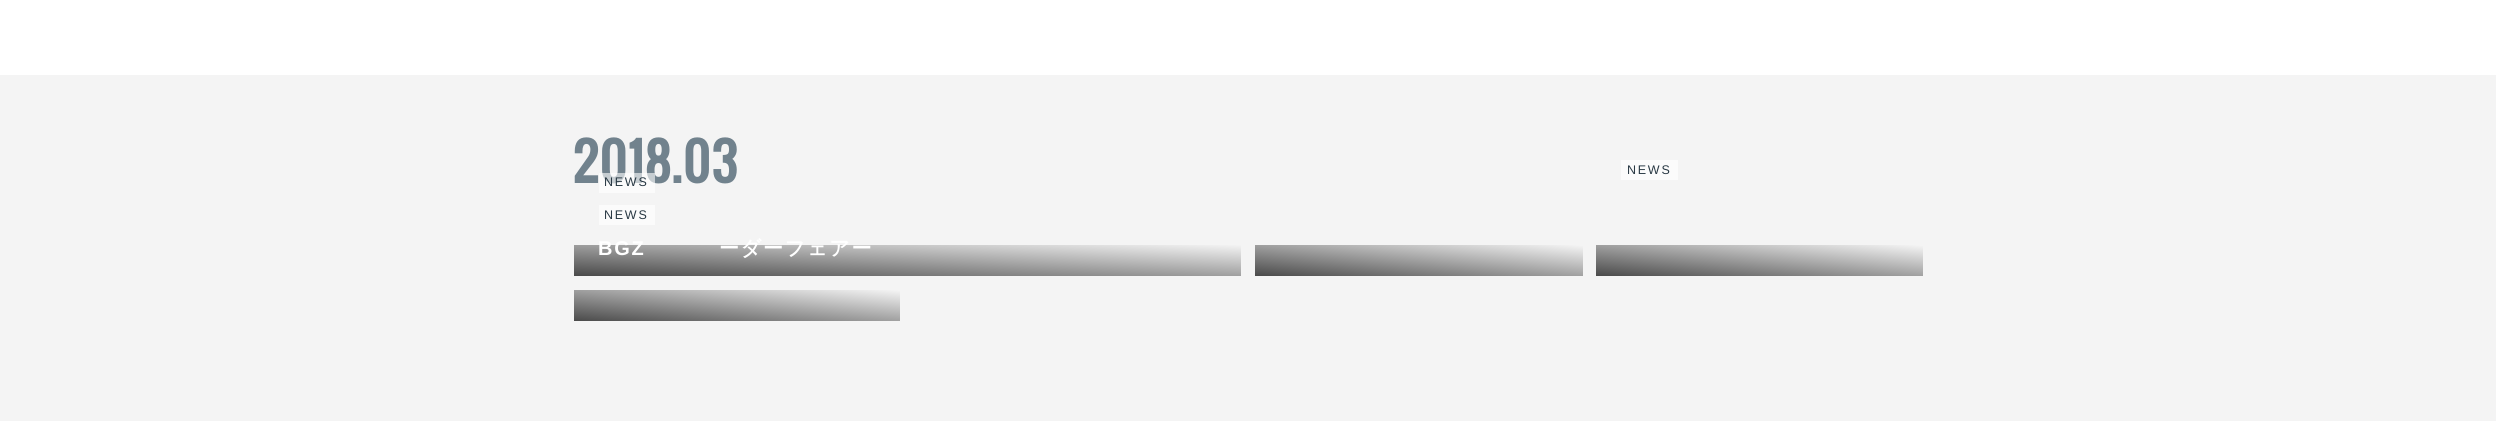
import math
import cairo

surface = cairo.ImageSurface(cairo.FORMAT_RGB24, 2496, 421)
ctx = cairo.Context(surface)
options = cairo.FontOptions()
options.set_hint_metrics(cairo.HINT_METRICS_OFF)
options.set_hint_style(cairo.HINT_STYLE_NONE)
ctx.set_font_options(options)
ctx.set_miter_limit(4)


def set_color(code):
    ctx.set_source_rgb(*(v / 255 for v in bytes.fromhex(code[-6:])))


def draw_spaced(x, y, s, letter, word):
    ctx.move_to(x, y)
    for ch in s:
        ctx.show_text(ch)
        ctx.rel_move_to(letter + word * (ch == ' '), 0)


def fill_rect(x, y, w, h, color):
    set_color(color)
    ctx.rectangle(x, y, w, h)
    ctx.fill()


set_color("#f4f4f4")
ctx.paint()
fill_rect(0, 0, 2496, 75, "#ffffff")
ctx.select_font_face("Oswald", cairo.FONT_SLANT_NORMAL, cairo.FONT_WEIGHT_BOLD)
ctx.set_font_size(50)
set_color("#71828d")
draw_spaced(573, 183, "2018.03", 1.75, 0)
fill_rect(1621, 160, 57, 20, "#fbfbfb")
ctx.select_font_face("Liberation Sans")
ctx.set_font_size(12.5)
set_color("#293944")
draw_spaced(1627, 174, "NEWS", 1.75, 0)
gradient = cairo.LinearGradient(1762, 230, 1756, 292)
gradient.add_color_stop_rgba(0, 0.957, 0.957, 0.957, 1)
gradient.add_color_stop_rgba(1, 0.286, 0.286, 0.286, 1)
ctx.set_source(gradient)
ctx.rectangle(1596, 245, 327, 31)
ctx.fill()
ctx.set_source_rgba(1, 1, 1, 0.6)
ctx.rectangle(599, 173, 56, 20)
ctx.fill()
set_color("#293944")
draw_spaced(604, 186, "NEWS", 1.75, 0)
gradient = cairo.LinearGradient(909, 229, 906, 292)
gradient.add_color_stop_rgba(0, 0.957, 0.957, 0.957, 1)
gradient.add_color_stop_rgba(1, 0.286, 0.286, 0.286, 1)
ctx.set_source(gradient)
ctx.rectangle(574, 245, 667, 31)
ctx.fill()
fill_rect(599, 205, 56, 20, "#fbfbfb")
set_color("#293944")
draw_spaced(604, 219, "NEWS", 1.75, 0)
ctx.select_font_face("Liberation Sans", cairo.FONT_SLANT_NORMAL, cairo.FONT_WEIGHT_BOLD)
ctx.set_font_size(20)
set_color("#ffffff")
draw_spaced(598, 255, "BGZ", 1.75, 0)
ctx.select_font_face("WenQuanYi Zen Hei", cairo.FONT_SLANT_NORMAL, cairo.FONT_WEIGHT_BOLD)
draw_spaced(719, 255, "ーダーフェアー", 1.75, 0)
gradient = cairo.LinearGradient(740, 275, 734, 337)
gradient.add_color_stop_rgba(0, 0.957, 0.957, 0.957, 1)
gradient.add_color_stop_rgba(1, 0.286, 0.286, 0.286, 1)
ctx.set_source(gradient)
ctx.rectangle(574, 290, 326, 31)
ctx.fill()
gradient = cairo.LinearGradient(1422, 230, 1416, 292)
gradient.add_color_stop_rgba(0, 0.957, 0.957, 0.957, 1)
gradient.add_color_stop_rgba(1, 0.286, 0.286, 0.286, 1)
ctx.set_source(gradient)
ctx.rectangle(1255, 245, 328, 31)
ctx.fill()
surface.write_to_png("output.png")
